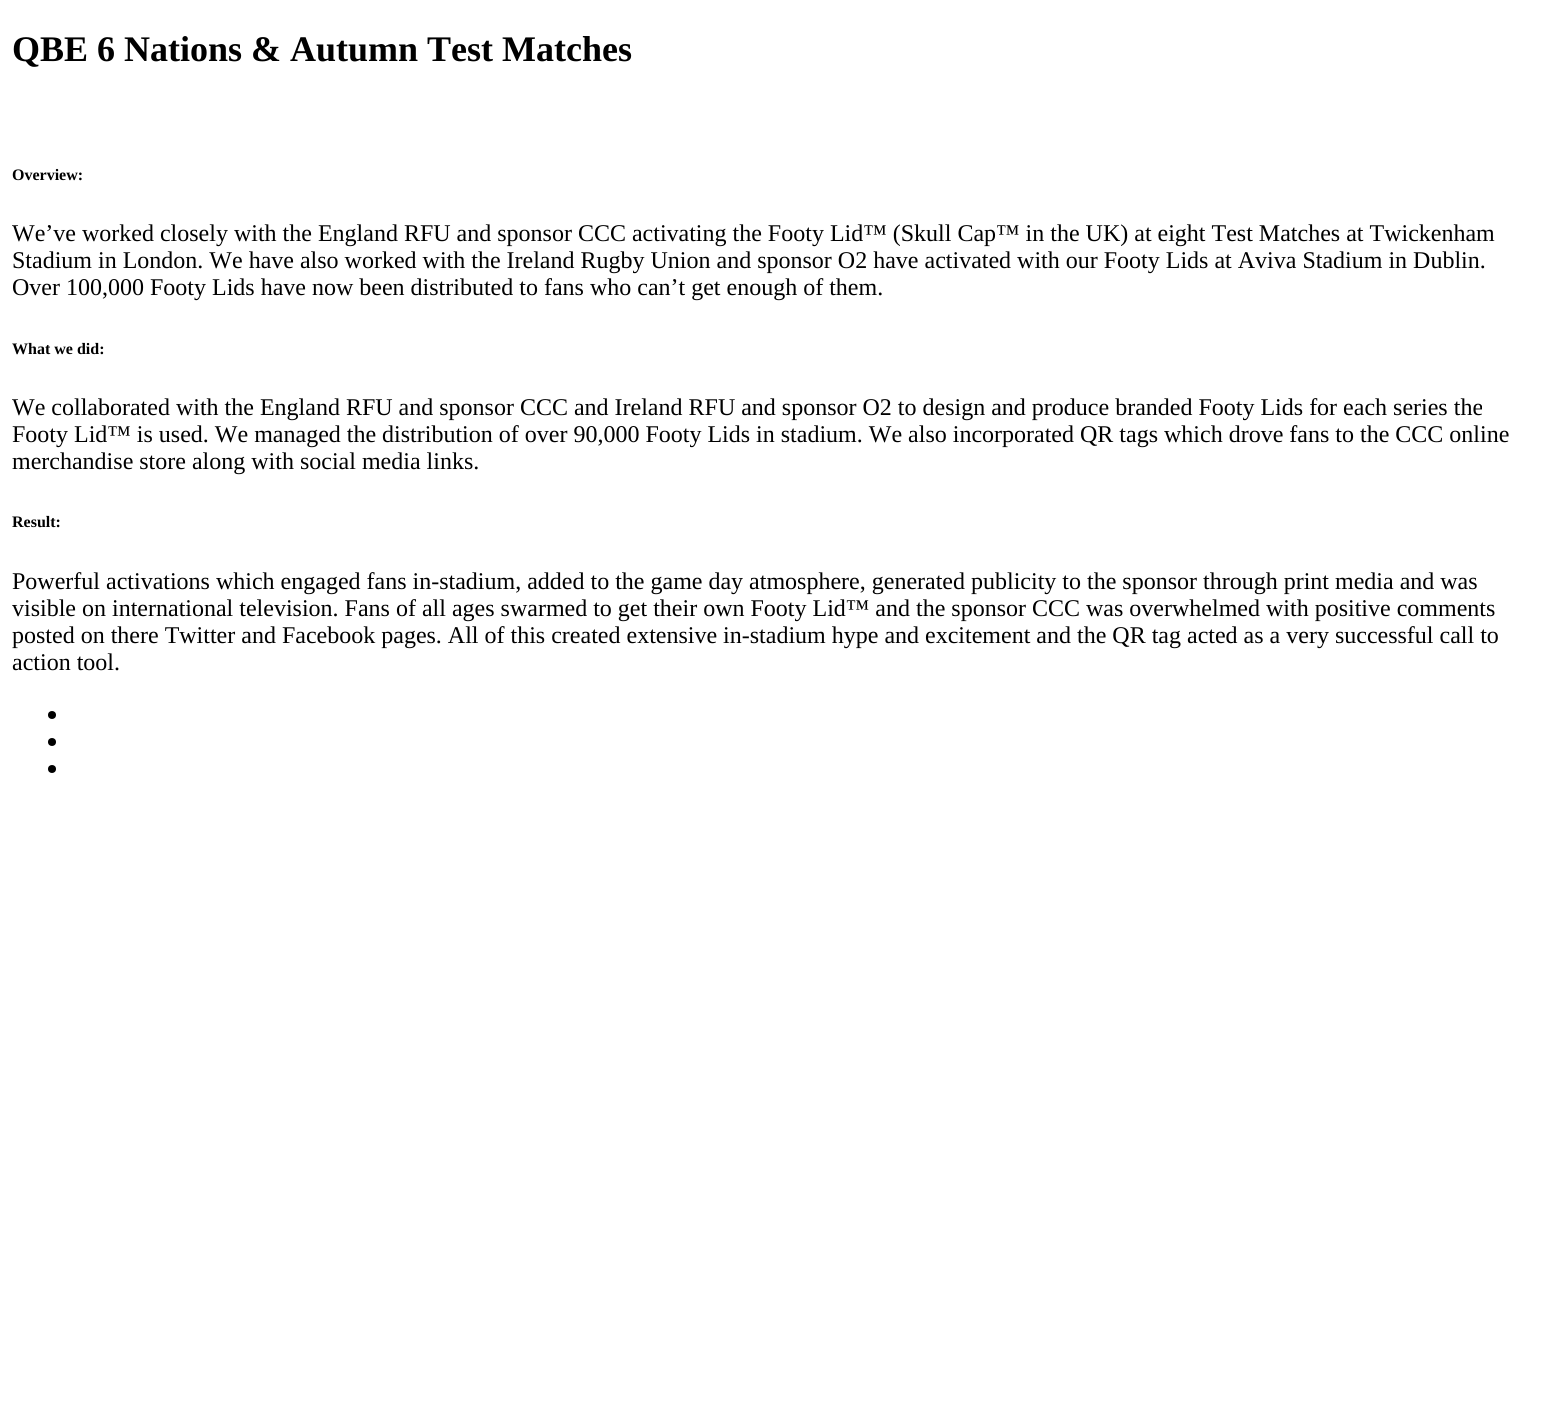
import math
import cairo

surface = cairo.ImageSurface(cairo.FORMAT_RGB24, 1544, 1412)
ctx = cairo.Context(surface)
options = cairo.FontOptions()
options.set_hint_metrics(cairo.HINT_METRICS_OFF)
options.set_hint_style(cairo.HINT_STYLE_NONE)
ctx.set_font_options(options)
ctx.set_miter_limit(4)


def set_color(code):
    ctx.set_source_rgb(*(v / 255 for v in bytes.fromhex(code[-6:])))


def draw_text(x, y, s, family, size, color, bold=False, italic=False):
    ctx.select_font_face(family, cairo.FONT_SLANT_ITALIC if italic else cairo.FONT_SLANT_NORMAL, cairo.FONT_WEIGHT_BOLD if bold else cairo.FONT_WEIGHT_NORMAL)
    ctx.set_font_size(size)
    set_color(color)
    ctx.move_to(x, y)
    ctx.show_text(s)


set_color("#ffffff")
ctx.paint()
draw_text(12, 61, "QBE 6 Nations & Autumn Test Matches", "Liberation Serif", 36, "#000000", bold=True)
draw_text(12, 180, "Overview:", "Liberation Serif", 16, "#000000", bold=True)
draw_text(12, 241, "We’ve worked closely with the England RFU and sponsor CCC activating the Footy Lid™ (Skull Cap™ in the UK) at eight Test Matches at Twickenham", "Liberation Serif", 24, "#000000")
draw_text(12, 268, "Stadium in London. We have also worked with the Ireland Rugby Union and sponsor O2 have activated with our Footy Lids at Aviva Stadium in Dublin.", "Liberation Serif", 24, "#000000")
draw_text(12, 295, "Over 100,000 Footy Lids have now been distributed to fans who can’t get enough of them.", "Liberation Serif", 24, "#000000")
draw_text(12, 354, "What we did:", "Liberation Serif", 16, "#000000", bold=True)
draw_text(12, 415, "We collaborated with the England RFU and sponsor CCC and Ireland RFU and sponsor O2 to design and produce branded Footy Lids for each series the", "Liberation Serif", 24, "#000000")
draw_text(12, 442, "Footy Lid™ is used. We managed the distribution of over 90,000 Footy Lids in stadium. We also incorporated QR tags which drove fans to the CCC online", "Liberation Serif", 24, "#000000")
draw_text(12, 469, "merchandise store along with social media links.", "Liberation Serif", 24, "#000000")
draw_text(12, 527, "Result:", "Liberation Serif", 16, "#000000", bold=True)
draw_text(12, 589, "Powerful activations which engaged fans in-stadium, added to the game day atmosphere, generated publicity to the sponsor through print media and was", "Liberation Serif", 24, "#000000")
draw_text(12, 616, "visible on international television. Fans of all ages swarmed to get their own Footy Lid™ and the sponsor CCC was overwhelmed with positive comments", "Liberation Serif", 24, "#000000")
draw_text(12, 643, "posted on there Twitter and Facebook pages. All of this created extensive in-stadium hype and excitement and the QR tag acted as a very successful call to", "Liberation Serif", 24, "#000000")
draw_text(12, 670, "action tool.", "Liberation Serif", 24, "#000000")
ctx.new_path()
ctx.arc(52, 715, 4, 0, 2 * math.pi)
ctx.fill()
ctx.arc(52, 742, 4, 0, 2 * math.pi)
ctx.fill()
ctx.arc(52, 769, 4, 0, 2 * math.pi)
ctx.fill()
surface.write_to_png("output.png")
